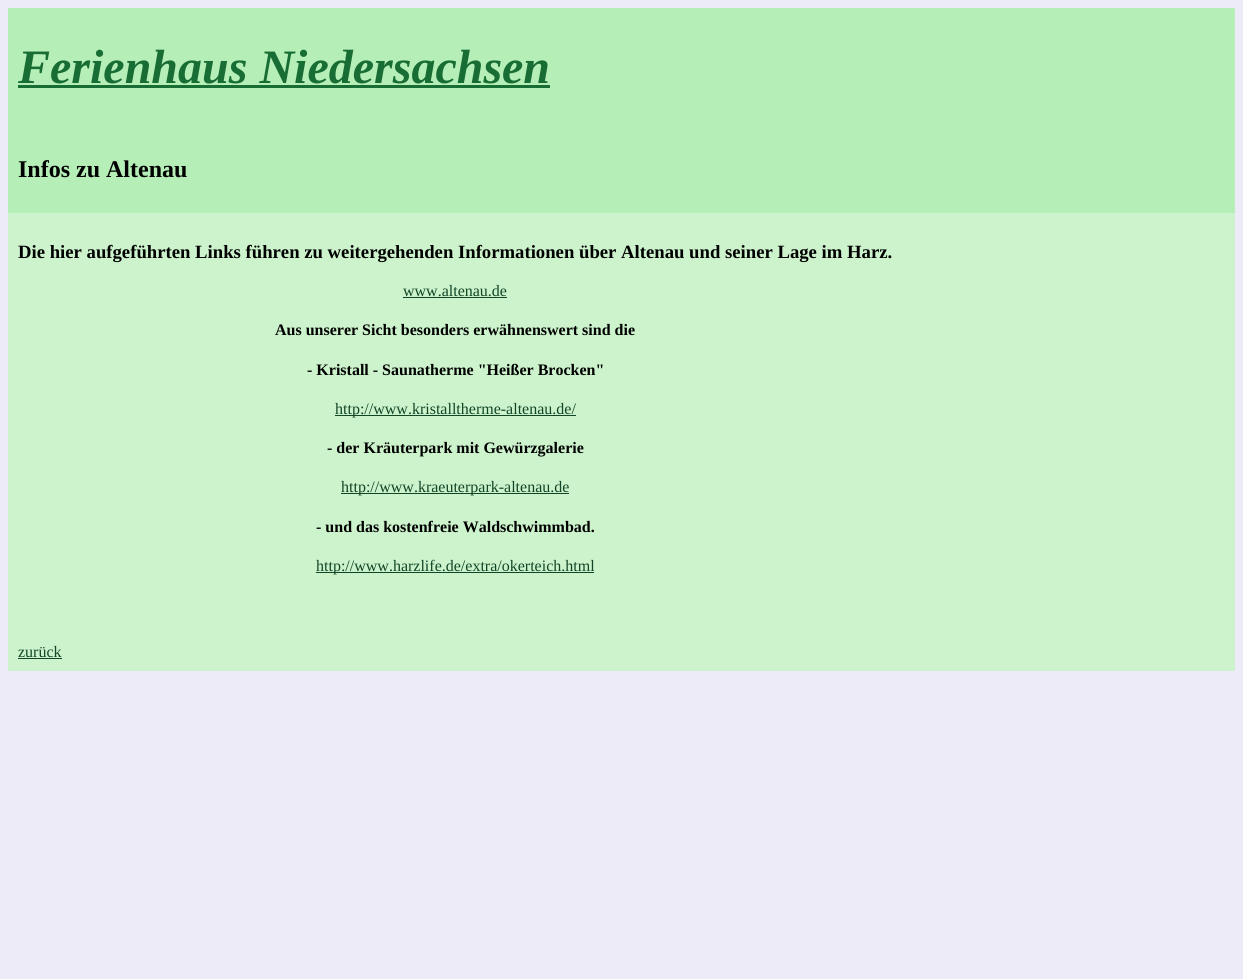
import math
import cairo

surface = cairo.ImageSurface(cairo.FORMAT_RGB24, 1243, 979)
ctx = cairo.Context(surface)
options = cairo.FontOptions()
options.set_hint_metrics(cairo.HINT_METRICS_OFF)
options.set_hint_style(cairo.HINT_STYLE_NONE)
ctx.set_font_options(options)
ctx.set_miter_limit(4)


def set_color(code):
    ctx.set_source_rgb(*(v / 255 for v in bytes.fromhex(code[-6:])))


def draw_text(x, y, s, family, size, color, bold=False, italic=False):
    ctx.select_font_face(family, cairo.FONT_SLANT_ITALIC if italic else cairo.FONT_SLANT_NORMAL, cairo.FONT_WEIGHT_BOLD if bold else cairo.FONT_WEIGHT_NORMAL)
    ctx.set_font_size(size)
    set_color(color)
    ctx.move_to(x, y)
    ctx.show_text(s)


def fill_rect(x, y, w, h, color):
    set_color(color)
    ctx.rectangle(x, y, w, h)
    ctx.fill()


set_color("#eeebf9")
ctx.paint()
fill_rect(8, 8, 1227, 205, "#b5eeb7")
draw_text(18, 83, "Ferienhaus Niedersachsen", "Liberation Serif", 48, "#186d35", bold=True, italic=True)
fill_rect(18, 85, 532, 3, "#186d35")
draw_text(18, 177, "Infos zu Altenau", "Liberation Serif", 24, "#000000", bold=True)
fill_rect(8, 213, 1227, 458, "#ccf3cc")
draw_text(18, 258, "Die hier aufgeführten Links führen zu weitergehenden Informationen über Altenau und seiner Lage im Harz.", "Liberation Serif", 18.7, "#000000", bold=True)
draw_text(403, 296, "www.altenau.de", "Liberation Serif", 16, "#124526")
fill_rect(403, 297, 104, 1, "#124526")
draw_text(275, 335, "Aus unserer Sicht besonders erwähnenswert sind die", "Liberation Serif", 16, "#000000", bold=True)
draw_text(307, 375, "- Kristall - Saunatherme \"Heißer Brocken\"", "Liberation Serif", 16, "#000000", bold=True)
fill_rect(335, 415, 241, 1, "#124526")
draw_text(335, 414, "http://www.kristalltherme-altenau.de/", "Liberation Serif", 16, "#124526")
draw_text(327, 453, "- der Kräuterpark mit Gewürzgalerie", "Liberation Serif", 16, "#000000", bold=True)
fill_rect(341, 493, 228, 1, "#124526")
draw_text(341, 492, "http://www.kraeuterpark-altenau.de", "Liberation Serif", 16, "#124526")
draw_text(316, 532, "- und das kostenfreie Waldschwimmbad.", "Liberation Serif", 16, "#000000", bold=True)
fill_rect(316, 572, 278, 1, "#124526")
draw_text(316, 571, "http://www.harzlife.de/extra/okerteich.html", "Liberation Serif", 16, "#124526")
draw_text(18, 657, "zurück", "Liberation Serif", 16, "#124526")
fill_rect(18, 658, 44, 1, "#124526")
surface.write_to_png("output.png")
